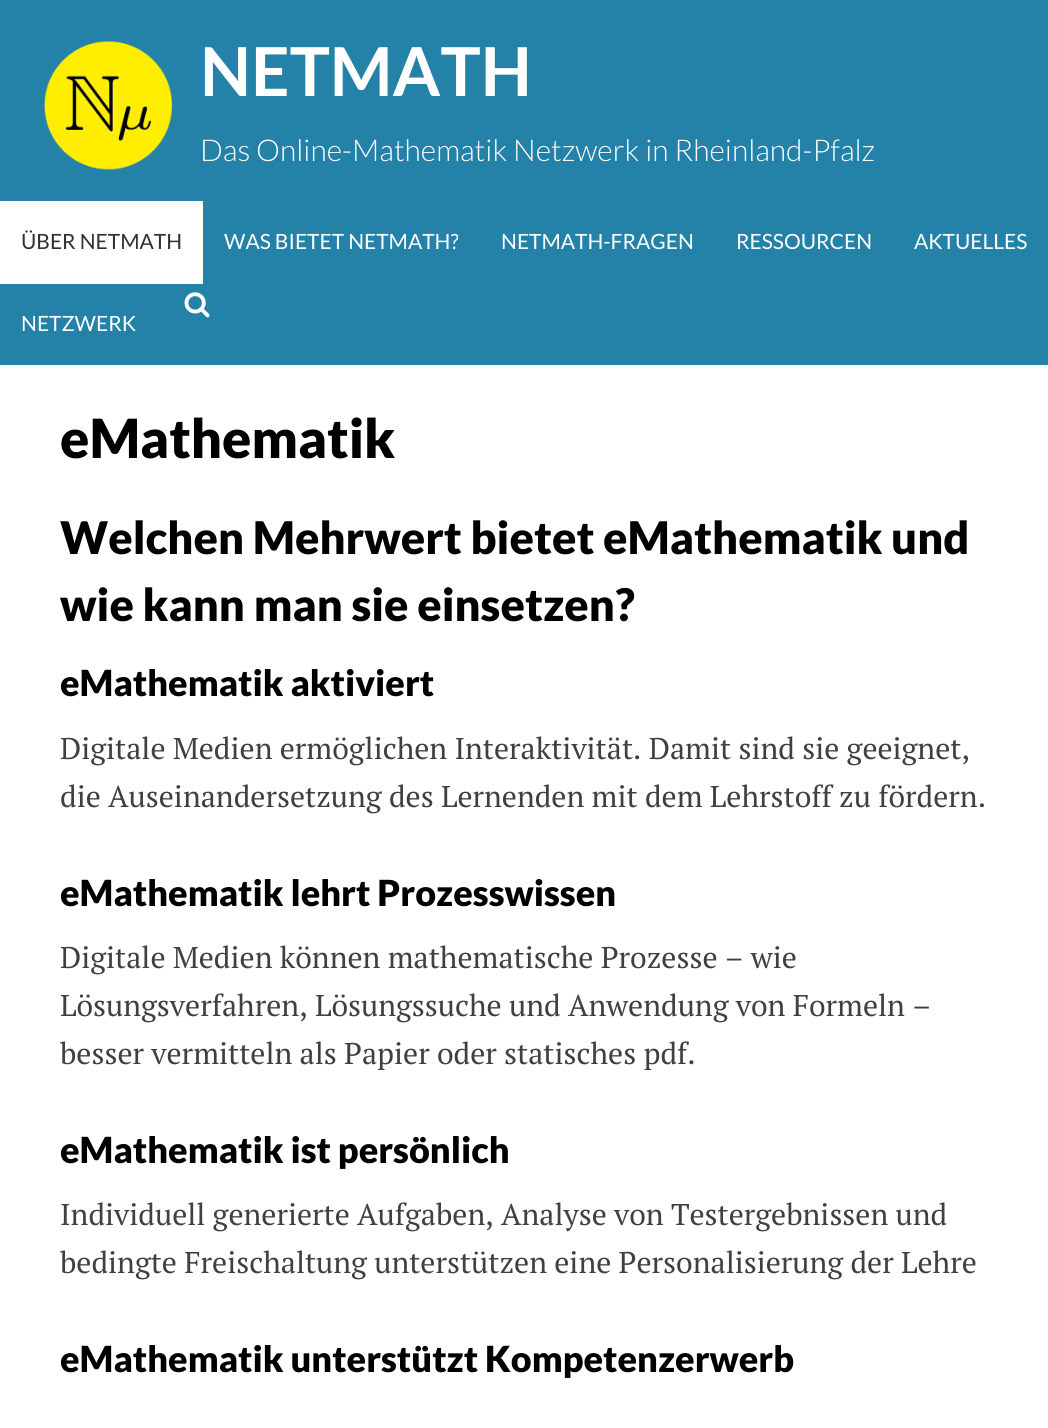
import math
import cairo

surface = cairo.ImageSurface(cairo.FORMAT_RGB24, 1048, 1428)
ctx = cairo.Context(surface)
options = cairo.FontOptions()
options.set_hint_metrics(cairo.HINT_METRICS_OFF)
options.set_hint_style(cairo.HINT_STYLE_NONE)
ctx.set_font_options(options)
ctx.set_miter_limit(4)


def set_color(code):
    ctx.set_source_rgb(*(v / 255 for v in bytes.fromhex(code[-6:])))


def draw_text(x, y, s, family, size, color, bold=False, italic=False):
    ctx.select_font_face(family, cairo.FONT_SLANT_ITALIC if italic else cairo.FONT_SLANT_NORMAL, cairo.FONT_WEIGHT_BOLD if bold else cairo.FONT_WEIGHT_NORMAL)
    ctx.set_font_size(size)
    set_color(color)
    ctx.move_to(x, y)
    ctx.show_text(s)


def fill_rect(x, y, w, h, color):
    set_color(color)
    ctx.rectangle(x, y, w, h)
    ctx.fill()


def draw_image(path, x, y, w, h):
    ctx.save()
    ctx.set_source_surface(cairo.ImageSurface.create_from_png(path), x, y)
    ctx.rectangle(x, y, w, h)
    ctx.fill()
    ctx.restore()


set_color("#ffffff")
ctx.paint()
fill_rect(0, 0, 1048, 365, "#2481a8")
draw_image("assets/img1.png", 44, 41, 128, 129)
draw_text(200, 96, "NETMATH", "Lato", 67.5, "#ffffff", bold=True)
draw_text(200, 161, "Das Online-Mathematik Netzwerk in Rheinland-Pfalz", "Lato Light", 30, "#ffffff")
fill_rect(0, 201, 203, 83, "#ffffff")
draw_text(21, 249, "ÜBER NETMATH", "Lato", 21, "#303030")
draw_text(224, 249, "WAS BIETET NETMATH?", "Lato", 21, "#ffffff")
draw_text(501, 249, "NETMATH-FRAGEN", "Lato", 21, "#ffffff")
draw_text(736, 249, "RESSOURCEN", "Lato", 21, "#ffffff")
draw_text(914, 249, "AKTUELLES", "Lato", 21, "#ffffff")
draw_text(21, 331, "NETZWERK", "Lato", 21, "#ffffff")
draw_image("assets/img2.png", 184, 292, 26, 26)
draw_text(60, 458, "eMathematik", "Lato Black", 54, "#000000")
draw_text(60, 554, "Welchen Mehrwert bietet eMathematik und", "Lato Black", 45, "#000000")
draw_text(60, 621, "wie kann man sie einsetzen?", "Lato Black", 45, "#000000")
draw_text(60, 696, "eMathematik aktiviert", "Lato Black", 36, "#000000")
draw_text(60, 759, "Digitale Medien ermöglichen Interaktivität. Damit sind sie geeignet,", "PT Serif", 30, "#404040")
draw_text(60, 807, "die Auseinandersetzung des Lernenden mit dem Lehrstoff zu fördern.", "PT Serif", 30, "#404040")
draw_text(60, 906, "eMathematik lehrt Prozesswissen", "Lato Black", 36, "#000000")
draw_text(60, 968, "Digitale Medien können mathematische Prozesse – wie", "PT Serif", 30, "#404040")
draw_text(60, 1016, "Lösungsverfahren, Lösungssuche und Anwendung von Formeln –", "PT Serif", 30, "#404040")
draw_text(60, 1064, "besser vermitteln als Papier oder statisches pdf.", "PT Serif", 30, "#404040")
draw_text(60, 1163, "eMathematik ist persönlich", "Lato Black", 36, "#000000")
draw_text(60, 1225, "Individuell generierte Aufgaben, Analyse von Testergebnissen und", "PT Serif", 30, "#404040")
draw_text(60, 1273, "bedingte Freischaltung unterstützen eine Personalisierung der Lehre", "PT Serif", 30, "#404040")
draw_text(60, 1372, "eMathematik unterstützt Kompetenzerwerb", "Lato Black", 36, "#000000")
surface.write_to_png("output.png")
